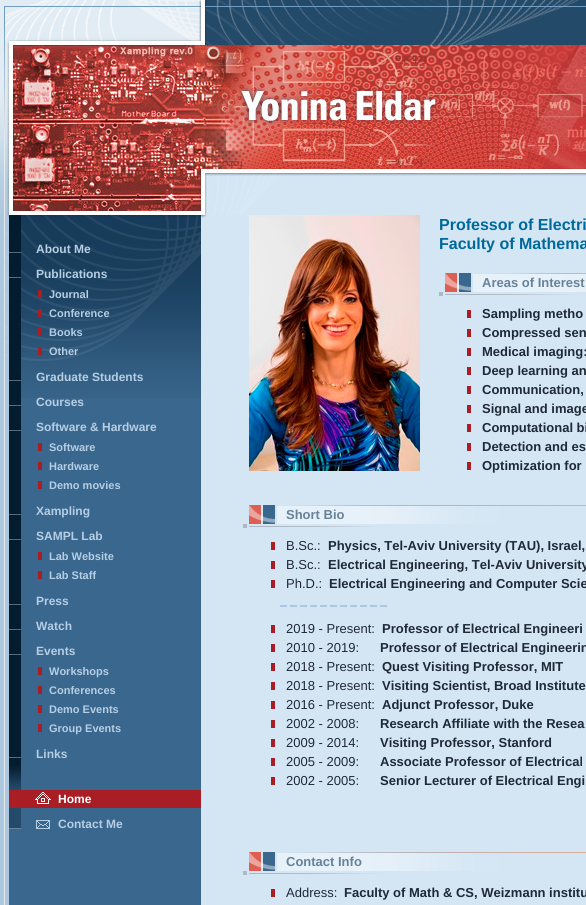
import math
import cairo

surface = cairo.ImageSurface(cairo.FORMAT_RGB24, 586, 905)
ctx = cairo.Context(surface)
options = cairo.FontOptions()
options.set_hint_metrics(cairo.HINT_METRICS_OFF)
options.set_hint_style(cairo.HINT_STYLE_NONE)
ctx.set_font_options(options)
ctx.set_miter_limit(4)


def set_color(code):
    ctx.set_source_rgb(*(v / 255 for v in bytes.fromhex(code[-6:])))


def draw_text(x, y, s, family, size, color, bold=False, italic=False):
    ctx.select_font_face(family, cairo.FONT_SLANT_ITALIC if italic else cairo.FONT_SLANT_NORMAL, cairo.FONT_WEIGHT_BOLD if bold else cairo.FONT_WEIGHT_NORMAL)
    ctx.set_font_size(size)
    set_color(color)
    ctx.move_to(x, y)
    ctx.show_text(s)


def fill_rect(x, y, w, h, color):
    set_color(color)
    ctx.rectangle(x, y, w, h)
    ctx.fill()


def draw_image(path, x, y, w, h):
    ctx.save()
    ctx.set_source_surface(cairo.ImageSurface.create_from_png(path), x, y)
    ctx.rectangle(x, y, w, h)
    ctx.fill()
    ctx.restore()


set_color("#ffffff")
ctx.paint()
draw_image("assets/img1.png", 0, 0, 4, 905)
draw_image("assets/img2.png", 4, 0, 582, 45)
draw_image("assets/img3.png", 4, 45, 197, 170)
draw_image("assets/img4.png", 201, 45, 385, 124)
draw_image("assets/img5.png", 201, 169, 385, 46)
draw_image("assets/img6.png", 4, 215, 582, 690)
draw_image("assets/img7.png", 201, 215, 6, 3)
draw_image("assets/img8.png", 5, 215, 196, 183)
fill_rect(9, 215, 12, 25, "#041c30")
draw_image("assets/img9.png", 9, 240, 12, 18)
draw_text(36, 253, "About Me", "Liberation Sans", 12, "#b5cee4", bold=True)
fill_rect(9, 258, 12, 7, "#041c30")
draw_image("assets/img9.png", 9, 265, 12, 18)
draw_text(36, 278, "Publications", "Liberation Sans", 12, "#b5cee4", bold=True)
fill_rect(9, 283, 12, 85, "#041c30")
fill_rect(38, 290, 4, 8, "#a81e24")
draw_text(49, 298, "Journal", "Liberation Sans", 11, "#b5cee4", bold=True)
fill_rect(38, 309, 4, 8, "#a81e24")
draw_text(49, 317, "Conference", "Liberation Sans", 11, "#b5cee4", bold=True)
fill_rect(38, 328, 4, 8, "#a81e24")
draw_text(49, 336, "Books", "Liberation Sans", 11, "#b5cee4", bold=True)
fill_rect(38, 347, 4, 8, "#a81e24")
draw_text(49, 355, "Other", "Liberation Sans", 11, "#b5cee4", bold=True)
draw_image("assets/img9.png", 9, 368, 12, 18)
draw_text(36, 381, "Graduate Students", "Liberation Sans", 12, "#b5cee4", bold=True)
fill_rect(9, 386, 12, 7, "#041c30")
draw_image("assets/img9.png", 9, 393, 12, 18)
draw_text(36, 406, "Courses", "Liberation Sans", 12, "#b5cee4", bold=True)
fill_rect(9, 411, 12, 7, "#041c30")
draw_image("assets/img9.png", 9, 418, 12, 18)
draw_text(36, 431, "Software & Hardware", "Liberation Sans", 12, "#b5cee4", bold=True)
fill_rect(9, 436, 12, 66, "#041c30")
fill_rect(38, 443, 4, 8, "#a81e24")
draw_text(49, 451, "Software", "Liberation Sans", 11, "#b5cee4", bold=True)
fill_rect(38, 462, 4, 8, "#a81e24")
draw_text(49, 470, "Hardware", "Liberation Sans", 11, "#b5cee4", bold=True)
fill_rect(38, 481, 4, 8, "#a81e24")
draw_text(49, 489, "Demo movies", "Liberation Sans", 11, "#b5cee4", bold=True)
draw_image("assets/img9.png", 9, 502, 12, 18)
draw_text(36, 515, "Xampling", "Liberation Sans", 12, "#b5cee4", bold=True)
fill_rect(9, 520, 12, 7, "#041c30")
draw_image("assets/img9.png", 9, 527, 12, 18)
draw_text(36, 540, "SAMPL Lab", "Liberation Sans", 12, "#b5cee4", bold=True)
fill_rect(9, 545, 12, 47, "#041c30")
fill_rect(38, 552, 4, 8, "#a81e24")
draw_text(49, 560, "Lab Website", "Liberation Sans", 11, "#b5cee4", bold=True)
fill_rect(38, 571, 4, 8, "#a81e24")
draw_text(49, 579, "Lab Staff", "Liberation Sans", 11, "#b5cee4", bold=True)
draw_image("assets/img9.png", 9, 592, 12, 18)
draw_text(36, 605, "Press", "Liberation Sans", 12, "#b5cee4", bold=True)
fill_rect(9, 610, 12, 7, "#041c30")
draw_image("assets/img9.png", 9, 617, 12, 18)
draw_text(36, 630, "Watch", "Liberation Sans", 12, "#b5cee4", bold=True)
fill_rect(9, 635, 12, 7, "#041c30")
draw_image("assets/img9.png", 9, 642, 12, 18)
draw_text(36, 655, "Events", "Liberation Sans", 12, "#b5cee4", bold=True)
fill_rect(9, 660, 12, 85, "#041c30")
fill_rect(38, 667, 4, 8, "#a81e24")
draw_text(49, 675, "Workshops", "Liberation Sans", 11, "#b5cee4", bold=True)
fill_rect(38, 686, 4, 8, "#a81e24")
draw_text(49, 694, "Conferences", "Liberation Sans", 11, "#b5cee4", bold=True)
fill_rect(38, 705, 4, 8, "#a81e24")
draw_text(49, 713, "Demo Events", "Liberation Sans", 11, "#b5cee4", bold=True)
fill_rect(38, 724, 4, 8, "#a81e24")
draw_text(49, 732, "Group Events", "Liberation Sans", 11, "#b5cee4", bold=True)
draw_image("assets/img9.png", 9, 745, 12, 18)
draw_text(36, 758, "Links", "Liberation Sans", 12, "#b5cee4", bold=True)
draw_image("assets/img10.png", 9, 763, 12, 27)
draw_image("assets/img11.png", 9, 790, 192, 18)
draw_text(58, 803, "Home", "Liberation Sans", 12, "#ffffff", bold=True)
fill_rect(9, 808, 12, 7, "#244a69")
draw_image("assets/img12.png", 9, 815, 41, 14)
draw_text(58, 828, "Contact Me", "Liberation Sans", 12, "#b5cee4", bold=True)
draw_image("assets/img13.png", 249, 215, 171, 256)
draw_text(439, 230, "Professor of Electri", "Liberation Sans", 16, "#00699b", bold=True)
draw_text(439, 249, "Faculty of Mathema", "Liberation Sans", 16, "#00699b", bold=True)
draw_image("assets/img14.png", 439, 273, 147, 23)
draw_text(482, 287, "Areas of Interest", "Liberation Sans", 13, "#688298", bold=True)
fill_rect(467, 310, 4, 8, "#a81e24")
draw_text(482, 318, "Sampling metho", "Liberation Sans", 13, "#202937", bold=True)
fill_rect(467, 329, 4, 8, "#a81e24")
draw_text(482, 337, "Compressed sen", "Liberation Sans", 13, "#202937", bold=True)
fill_rect(467, 348, 4, 8, "#a81e24")
draw_text(482, 356, "Medical imaging:", "Liberation Sans", 13, "#202937", bold=True)
fill_rect(467, 367, 4, 8, "#a81e24")
draw_text(482, 375, "Deep learning an", "Liberation Sans", 13, "#202937", bold=True)
fill_rect(467, 386, 4, 8, "#a81e24")
draw_text(482, 394, "Communication,", "Liberation Sans", 13, "#202937", bold=True)
fill_rect(467, 405, 4, 8, "#a81e24")
draw_text(482, 413, "Signal and image", "Liberation Sans", 13, "#202937", bold=True)
fill_rect(467, 424, 4, 8, "#a81e24")
draw_text(482, 432, "Computational bi", "Liberation Sans", 13, "#202937", bold=True)
fill_rect(467, 443, 4, 8, "#a81e24")
draw_text(482, 451, "Detection and es", "Liberation Sans", 13, "#202937", bold=True)
fill_rect(467, 462, 4, 8, "#a81e24")
draw_text(482, 470, "Optimization for", "Liberation Sans", 13, "#202937", bold=True)
draw_image("assets/img15.png", 243, 505, 343, 23)
draw_text(286, 519, "Short Bio", "Liberation Sans", 13, "#688298", bold=True)
fill_rect(271, 542, 4, 8, "#a81e24")
draw_text(286, 550, "B.Sc.:", "Liberation Sans", 13, "#202937")
draw_text(328, 550, "Physics, Tel-Aviv University (TAU), Israel,", "Liberation Sans", 13, "#202937", bold=True)
fill_rect(271, 561, 4, 8, "#a81e24")
draw_text(286, 569, "B.Sc.:", "Liberation Sans", 13, "#202937")
draw_text(328, 569, "Electrical Engineering, Tel-Aviv University", "Liberation Sans", 13, "#202937", bold=True)
fill_rect(271, 580, 4, 8, "#a81e24")
draw_text(286, 588, "Ph.D.:", "Liberation Sans", 13, "#202937")
draw_text(329, 588, "Electrical Engineering and Computer Scie", "Liberation Sans", 13, "#202937", bold=True)
draw_image("assets/img16.png", 280, 605, 107, 2)
fill_rect(271, 625, 4, 8, "#a81e24")
draw_text(286, 633, "2019 - Present:", "Liberation Sans", 13, "#202937")
draw_text(382, 633, "Professor of Electrical Engineeri", "Liberation Sans", 13, "#202937", bold=True)
fill_rect(271, 644, 4, 8, "#a81e24")
draw_text(286, 652, "2010 - 2019:", "Liberation Sans", 13, "#202937")
draw_text(380, 652, "Professor of Electrical Engineerin", "Liberation Sans", 13, "#202937", bold=True)
fill_rect(271, 663, 4, 8, "#a81e24")
draw_text(286, 671, "2018 - Present:", "Liberation Sans", 13, "#202937")
draw_text(382, 671, "Quest Visiting Professor, MIT", "Liberation Sans", 13, "#202937", bold=True)
fill_rect(271, 682, 4, 8, "#a81e24")
draw_text(286, 690, "2018 - Present:", "Liberation Sans", 13, "#202937")
draw_text(382, 690, "Visiting Scientist, Broad Institute", "Liberation Sans", 13, "#202937", bold=True)
fill_rect(271, 701, 4, 8, "#a81e24")
draw_text(286, 709, "2016 - Present:", "Liberation Sans", 13, "#202937")
draw_text(382, 709, "Adjunct Professor, Duke", "Liberation Sans", 13, "#202937", bold=True)
fill_rect(271, 720, 4, 8, "#a81e24")
draw_text(286, 728, "2002 - 2008:", "Liberation Sans", 13, "#202937")
draw_text(380, 728, "Research Affiliate with the Resea", "Liberation Sans", 13, "#202937", bold=True)
fill_rect(271, 739, 4, 8, "#a81e24")
draw_text(286, 747, "2009 - 2014:", "Liberation Sans", 13, "#202937")
draw_text(380, 747, "Visiting Professor, Stanford", "Liberation Sans", 13, "#202937", bold=True)
fill_rect(271, 758, 4, 8, "#a81e24")
draw_text(286, 766, "2005 - 2009:", "Liberation Sans", 13, "#202937")
draw_text(380, 766, "Associate Professor of Electrical", "Liberation Sans", 13, "#202937", bold=True)
fill_rect(271, 777, 4, 8, "#a81e24")
draw_text(286, 785, "2002 - 2005:", "Liberation Sans", 13, "#202937")
draw_text(380, 785, "Senior Lecturer of Electrical Engi", "Liberation Sans", 13, "#202937", bold=True)
draw_image("assets/img15.png", 243, 852, 343, 23)
draw_text(286, 866, "Contact Info", "Liberation Sans", 13, "#688298", bold=True)
fill_rect(271, 889, 4, 8, "#a81e24")
draw_text(286, 897, "Address:", "Liberation Sans", 13, "#202937")
draw_text(344, 897, "Faculty of Math & CS, Weizmann institu", "Liberation Sans", 13, "#202937", bold=True)
surface.write_to_png("output.png")
